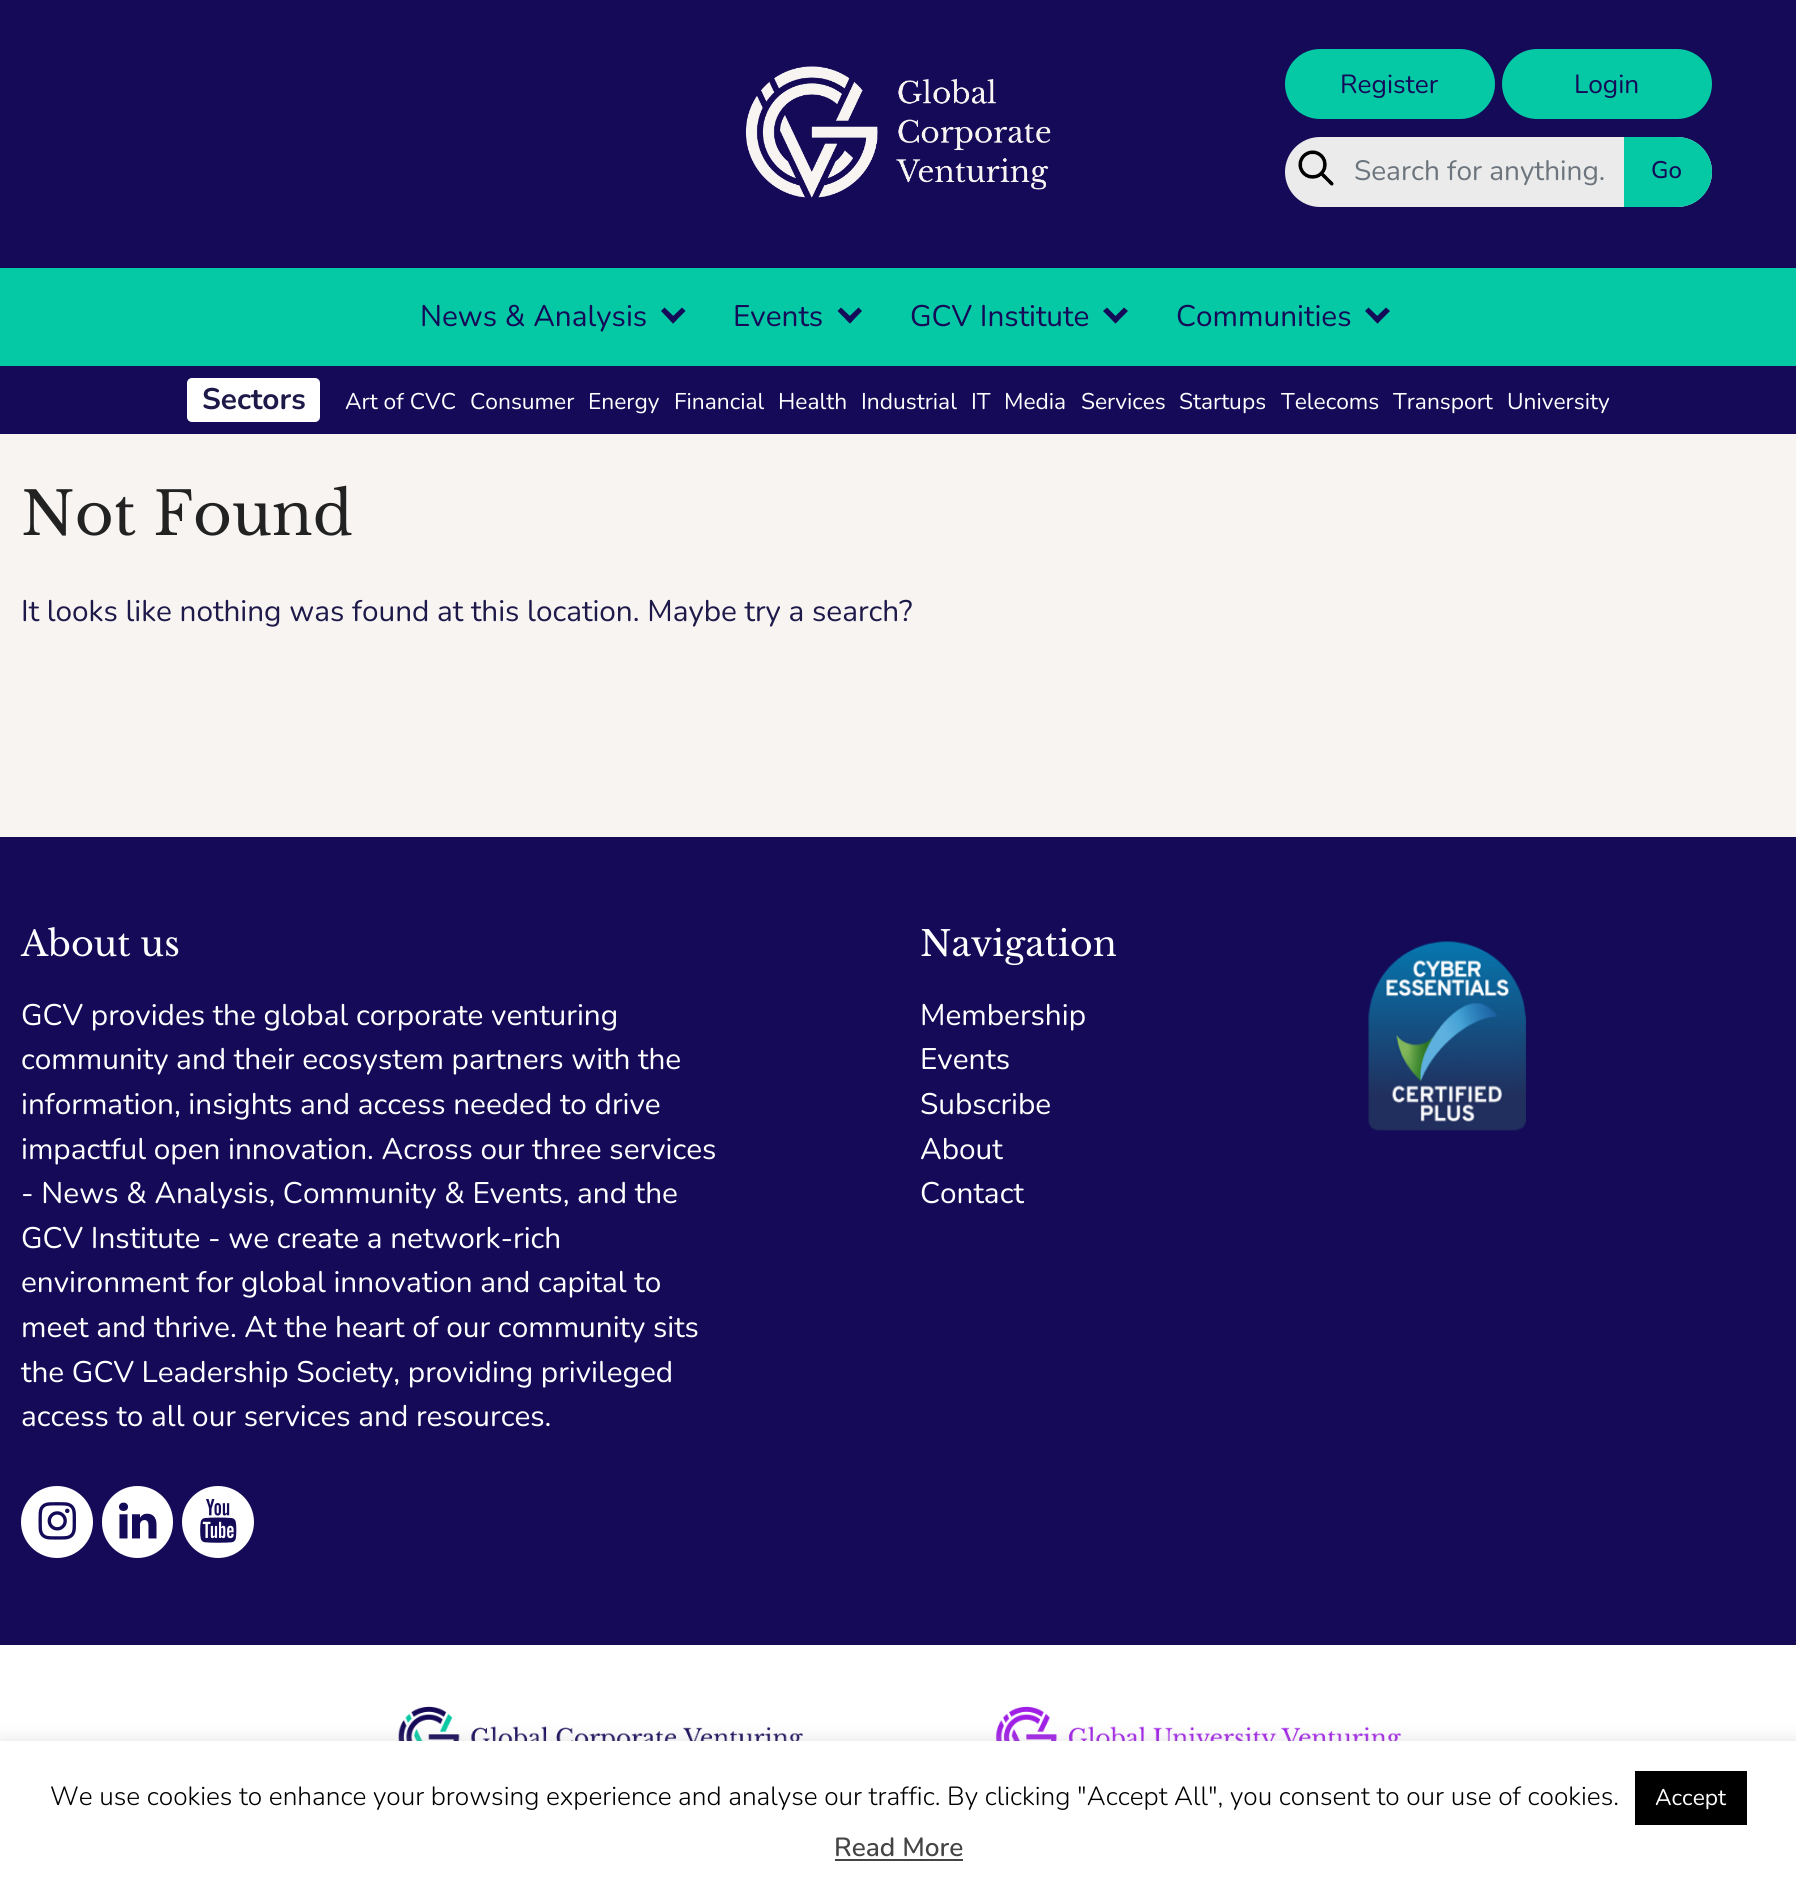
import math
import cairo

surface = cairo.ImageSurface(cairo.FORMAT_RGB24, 1796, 1887)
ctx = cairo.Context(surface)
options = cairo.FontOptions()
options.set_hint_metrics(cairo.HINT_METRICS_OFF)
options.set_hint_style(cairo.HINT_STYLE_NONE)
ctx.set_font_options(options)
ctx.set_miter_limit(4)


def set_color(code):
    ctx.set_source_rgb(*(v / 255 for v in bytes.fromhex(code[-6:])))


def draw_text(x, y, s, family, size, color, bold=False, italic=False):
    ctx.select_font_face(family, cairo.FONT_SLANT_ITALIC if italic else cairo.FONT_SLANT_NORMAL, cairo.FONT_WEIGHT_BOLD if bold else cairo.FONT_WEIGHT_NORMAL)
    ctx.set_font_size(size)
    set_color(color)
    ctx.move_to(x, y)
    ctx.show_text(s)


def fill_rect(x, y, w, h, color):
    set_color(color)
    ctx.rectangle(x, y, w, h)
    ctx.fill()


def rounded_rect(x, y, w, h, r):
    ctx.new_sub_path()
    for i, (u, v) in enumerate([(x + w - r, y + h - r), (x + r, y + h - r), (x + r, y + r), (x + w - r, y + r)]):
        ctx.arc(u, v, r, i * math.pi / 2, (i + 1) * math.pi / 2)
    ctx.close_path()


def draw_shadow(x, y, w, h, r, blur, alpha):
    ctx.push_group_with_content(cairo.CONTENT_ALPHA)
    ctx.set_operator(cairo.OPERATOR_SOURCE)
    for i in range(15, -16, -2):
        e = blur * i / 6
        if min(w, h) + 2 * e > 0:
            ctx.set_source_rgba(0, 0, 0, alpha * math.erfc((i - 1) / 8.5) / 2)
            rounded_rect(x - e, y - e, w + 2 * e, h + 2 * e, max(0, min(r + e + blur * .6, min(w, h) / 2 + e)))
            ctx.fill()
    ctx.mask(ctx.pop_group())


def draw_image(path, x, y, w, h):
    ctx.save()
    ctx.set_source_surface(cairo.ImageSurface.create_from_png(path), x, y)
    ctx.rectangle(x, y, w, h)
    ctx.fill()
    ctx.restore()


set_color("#f8f4f2")
ctx.paint()
fill_rect(0, 0, 1796, 268, "#140a58")
draw_image("assets/img1.png", 745, 66, 306, 132)
set_color("#04c9a4")
rounded_rect(1285, 49, 210, 70, 35)
ctx.fill()
draw_text(1340, 93, "Register", "Nunito", 26.25, "#140a58")
set_color("#04c9a4")
rounded_rect(1502, 49, 210, 70, 35)
ctx.fill()
draw_text(1574, 93, "Login", "Nunito", 26.25, "#140a58")
set_color("#ebebeb")
rounded_rect(1285, 137, 427, 70, 35)
ctx.fill()
draw_image("assets/img2.png", 1298, 150, 36, 36)
draw_text(1354, 180, "Search for anything.", "Nunito", 28, "#6c757d")
set_color("#04c9a4")
ctx.new_path()
ctx.move_to(1624, 137)
ctx.line_to(1677, 137)
ctx.curve_to(1696.5, 137, 1712, 152.5, 1712, 172)
ctx.curve_to(1712, 191.5, 1696.5, 207, 1677, 207)
ctx.line_to(1624, 207)
ctx.close_path()
ctx.fill()
draw_text(1651, 178, "Go", "Nunito Medium", 24, "#140a58")
fill_rect(0, 268, 1796, 98, "#04c9a4")
draw_text(420, 326, "News & Analysis", "Nunito", 29.75, "#140a58")
ctx.new_path()
ctx.move_to(682, 307.5)
ctx.line_to(685.5, 311)
ctx.line_to(673, 323.5)
ctx.line_to(669.5, 319.5)
ctx.close_path()
ctx.fill()
ctx.new_path()
ctx.move_to(664.5, 307.5)
ctx.line_to(677, 319.5)
ctx.line_to(673, 323.5)
ctx.line_to(661, 311)
ctx.close_path()
ctx.fill()
draw_text(733, 326, "Events", "Nunito", 29.75, "#140a58")
ctx.new_path()
ctx.move_to(858.5, 307.5)
ctx.line_to(862, 311)
ctx.line_to(850, 323.5)
ctx.line_to(846, 319.5)
ctx.close_path()
ctx.fill()
ctx.new_path()
ctx.move_to(841, 307.5)
ctx.line_to(853.5, 319.5)
ctx.line_to(850, 323.5)
ctx.line_to(837.5, 311)
ctx.close_path()
ctx.fill()
draw_text(910, 326, "GCV Institute", "Nunito", 29.75, "#140a58")
ctx.new_path()
ctx.move_to(1124, 307.5)
ctx.line_to(1128, 311)
ctx.line_to(1115.5, 323.5)
ctx.line_to(1112, 319.5)
ctx.close_path()
ctx.fill()
ctx.new_path()
ctx.move_to(1107, 307.5)
ctx.line_to(1119, 319.5)
ctx.line_to(1115.5, 323.5)
ctx.line_to(1103, 311)
ctx.close_path()
ctx.fill()
draw_text(1176, 326, "Communities", "Nunito", 29.75, "#140a58")
ctx.new_path()
ctx.move_to(1386, 307.5)
ctx.line_to(1390, 311)
ctx.line_to(1377.5, 323.5)
ctx.line_to(1373.5, 319.5)
ctx.close_path()
ctx.fill()
ctx.new_path()
ctx.move_to(1368.5, 307.5)
ctx.line_to(1381, 319.5)
ctx.line_to(1377.5, 323.5)
ctx.line_to(1365, 311)
ctx.close_path()
ctx.fill()
fill_rect(0, 366, 1796, 68, "#140a58")
set_color("#ffffff")
rounded_rect(187, 378, 133, 44, 5)
ctx.fill()
draw_text(202, 409, "Sectors", "Nunito", 29.75, "#1d1949", bold=True)
draw_text(345, 409, "Art of CVC", "Nunito", 22.75, "#ffffff")
draw_text(470, 409, "Consumer", "Nunito", 22.75, "#ffffff")
draw_text(588, 409, "Energy", "Nunito", 22.75, "#ffffff")
draw_text(674, 409, "Financial", "Nunito", 22.75, "#ffffff")
draw_text(778, 409, "Health", "Nunito", 22.75, "#ffffff")
draw_text(861, 409, "Industrial", "Nunito", 22.75, "#ffffff")
draw_text(971, 409, "IT", "Nunito", 22.75, "#ffffff")
draw_text(1004, 409, "Media", "Nunito", 22.75, "#ffffff")
draw_text(1081, 409, "Services", "Nunito", 22.75, "#ffffff")
draw_text(1179, 409, "Startups", "Nunito", 22.75, "#ffffff")
draw_text(1281, 409, "Telecoms", "Nunito", 22.75, "#ffffff")
draw_text(1393, 409, "Transport", "Nunito", 22.75, "#ffffff")
draw_text(1507, 409, "University", "Nunito", 22.75, "#ffffff")
draw_text(21, 535, "Not Found", "Libre Baskerville", 59.5, "#222222")
draw_text(21, 621, "It looks like nothing was found at this location. Maybe try a search?", "Nunito", 29.75, "#1d1949")
fill_rect(0, 837, 1796, 808, "#140a58")
draw_text(21, 956, "About us", "Libre Baskerville", 35, "#ffffff")
draw_text(21, 1025, "GCV provides the global corporate venturing", "Nunito", 29.75, "#ffffff")
draw_text(21, 1069, "community and their ecosystem partners with the", "Nunito", 29.75, "#ffffff")
draw_text(21, 1114, "information, insights and access needed to drive", "Nunito", 29.75, "#ffffff")
draw_text(21, 1159, "impactful open innovation. Across our three services", "Nunito", 29.75, "#ffffff")
draw_text(21, 1203, "- News & Analysis, Community & Events, and the", "Nunito", 29.75, "#ffffff")
draw_text(21, 1248, "GCV Institute - we create a network-rich", "Nunito", 29.75, "#ffffff")
draw_text(21, 1292, "environment for global innovation and capital to", "Nunito", 29.75, "#ffffff")
draw_text(21, 1337, "meet and thrive. At the heart of our community sits", "Nunito", 29.75, "#ffffff")
draw_text(21, 1382, "the GCV Leadership Society, providing privileged", "Nunito", 29.75, "#ffffff")
draw_text(21, 1426, "access to all our services and resources.", "Nunito", 29.75, "#ffffff")
ctx.new_path()
ctx.arc(57, 1522, 36, 0, 2 * math.pi)
ctx.fill()
draw_image("assets/img3.png", 38, 1502, 38, 38)
rounded_rect(102, 1486, 71, 72, 35.5)
ctx.fill()
draw_image("assets/img4.png", 119, 1502, 38, 37)
ctx.arc(218, 1522, 36, 0, 2 * math.pi)
ctx.fill()
draw_image("assets/img5.png", 200, 1499, 37, 44)
draw_text(920, 956, "Navigation", "Libre Baskerville", 35, "#ffffff")
draw_text(920, 1025, "Membership", "Nunito", 29.75, "#ffffff")
draw_text(920, 1069, "Events", "Nunito", 29.75, "#ffffff")
draw_text(920, 1114, "Subscribe", "Nunito", 29.75, "#ffffff")
draw_text(920, 1159, "About", "Nunito", 29.75, "#ffffff")
draw_text(920, 1203, "Contact", "Nunito", 29.75, "#ffffff")
draw_image("assets/img6.png", 1368, 941, 158, 190)
fill_rect(0, 1645, 1796, 96, "#ffffff")
draw_image("assets/img7.png", 398, 1706, 405, 35)
draw_image("assets/img8.png", 995, 1706, 407, 35)
set_color("#acabab")
draw_shadow(0, 1740, 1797, 147, 0, 9, 0.3)
fill_rect(0, 1741, 1796, 146, "#ffffff")
draw_text(50, 1805, "We use cookies to enhance your browsing experience and analyse our traffic. By clicking \"Accept All\", you consent to our use of cookies.", "Nunito Light", 26.25, "#000000")
fill_rect(1635, 1771, 112, 54, "#000000")
draw_text(1655, 1805, "Accept", "Nunito", 22.75, "#ffffff")
draw_text(834, 1856, "Read More", "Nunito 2 Medium", 26.25, "#444444")
fill_rect(835, 1859, 128, 2, "#444444")
surface.write_to_png("output.png")
